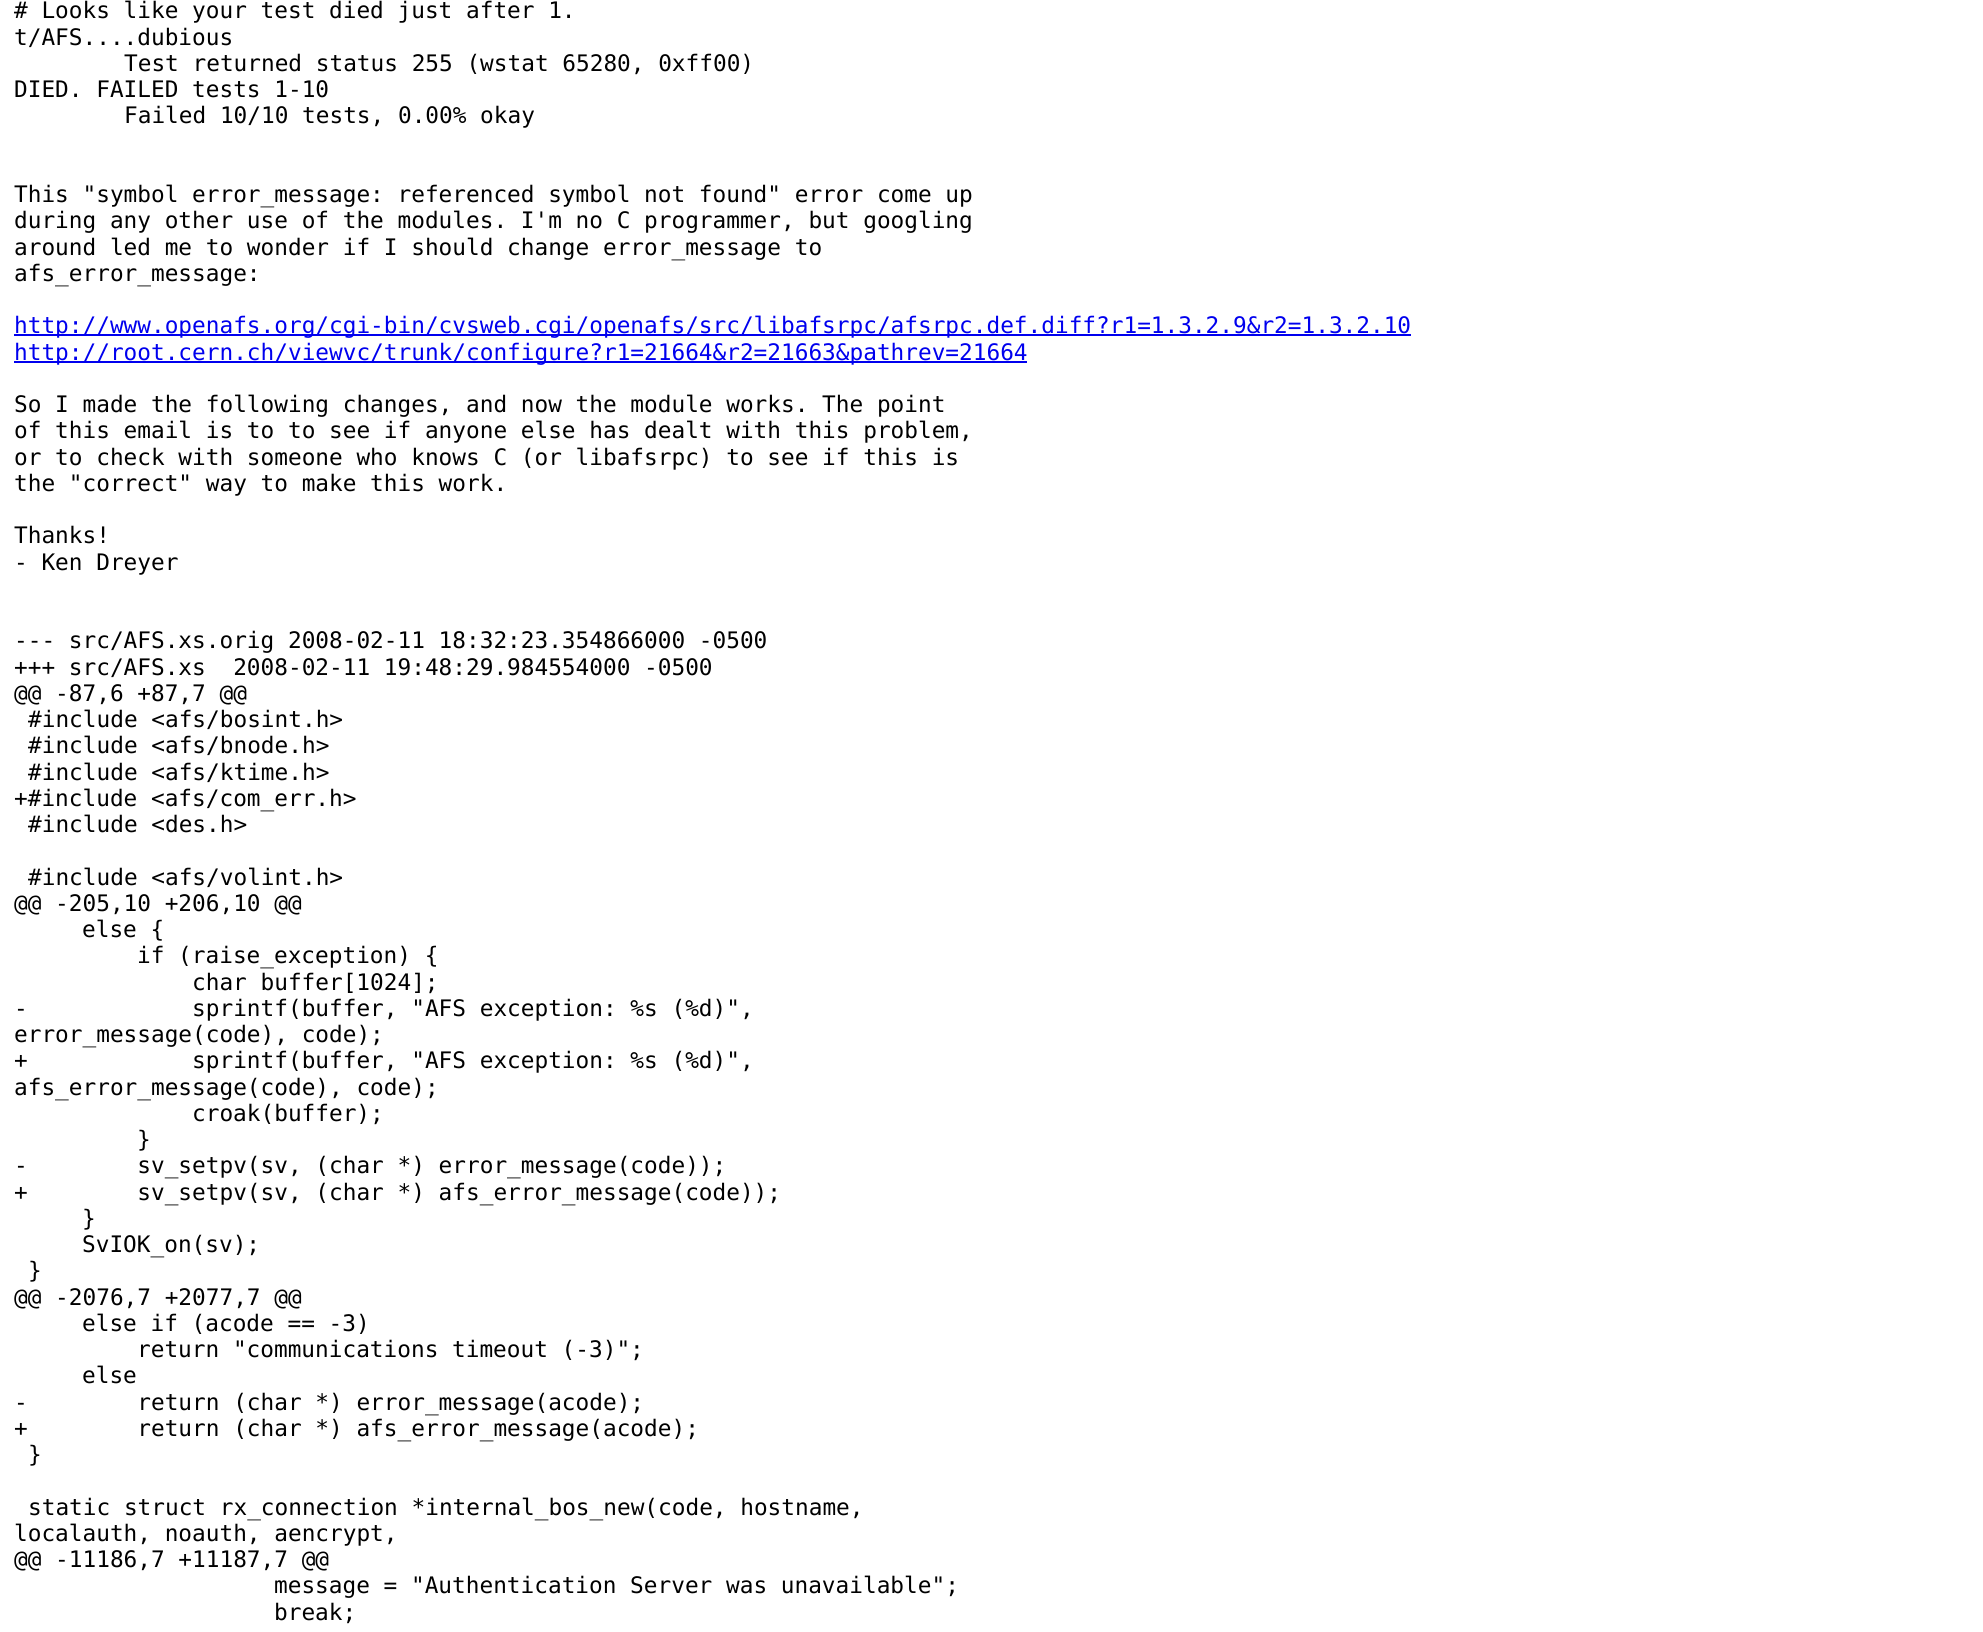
import math
import cairo

surface = cairo.ImageSurface(cairo.FORMAT_RGB24, 1983, 1632)
ctx = cairo.Context(surface)
options = cairo.FontOptions()
options.set_hint_metrics(cairo.HINT_METRICS_OFF)
options.set_hint_style(cairo.HINT_STYLE_NONE)
ctx.set_font_options(options)
ctx.set_miter_limit(4)


def set_color(code):
    ctx.set_source_rgb(*(v / 255 for v in bytes.fromhex(code[-6:])))


def draw_text(x, y, s, family, size, color, bold=False, italic=False):
    ctx.select_font_face(family, cairo.FONT_SLANT_ITALIC if italic else cairo.FONT_SLANT_NORMAL, cairo.FONT_WEIGHT_BOLD if bold else cairo.FONT_WEIGHT_NORMAL)
    ctx.set_font_size(size)
    set_color(color)
    ctx.move_to(x, y)
    ctx.show_text(s)


def fill_rect(x, y, w, h, color):
    set_color(color)
    ctx.rectangle(x, y, w, h)
    ctx.fill()


set_color("#ffffff")
ctx.paint()
draw_text(14, 18, "# Looks like your test died just after 1.", "DejaVu Sans Mono", 22.75, "#000000")
draw_text(14, 45, "t/AFS....dubious", "DejaVu Sans Mono", 22.75, "#000000")
draw_text(124, 71, "Test returned status 255 (wstat 65280, 0xff00)", "DejaVu Sans Mono", 22.75, "#000000")
draw_text(14, 97, "DIED. FAILED tests 1-10", "DejaVu Sans Mono", 22.75, "#000000")
draw_text(124, 123, "Failed 10/10 tests, 0.00% okay", "DejaVu Sans Mono", 22.75, "#000000")
draw_text(14, 202, "This \"symbol error_message: referenced symbol not found\" error come up", "DejaVu Sans Mono", 22.75, "#000000")
draw_text(14, 228, "during any other use of the modules. I'm no C programmer, but googling", "DejaVu Sans Mono", 22.75, "#000000")
draw_text(14, 255, "around led me to wonder if I should change error_message to", "DejaVu Sans Mono", 22.75, "#000000")
draw_text(14, 281, "afs_error_message:", "DejaVu Sans Mono", 22.75, "#000000")
fill_rect(14, 334, 1397, 2, "#0000ee")
draw_text(14, 333, "http://www.openafs.org/cgi-bin/cvsweb.cgi/openafs/src/libafsrpc/afsrpc.def.diff?r1=1.3.2.9&r2=1.3.2.10", "DejaVu Sans Mono", 22.75, "#0000ee")
fill_rect(14, 361, 1013, 2, "#0000ee")
draw_text(14, 360, "http://root.cern.ch/viewvc/trunk/configure?r1=21664&r2=21663&pathrev=21664", "DejaVu Sans Mono", 22.75, "#0000ee")
draw_text(14, 412, "So I made the following changes, and now the module works. The point", "DejaVu Sans Mono", 22.75, "#000000")
draw_text(14, 438, "of this email is to to see if anyone else has dealt with this problem,", "DejaVu Sans Mono", 22.75, "#000000")
draw_text(14, 465, "or to check with someone who knows C (or libafsrpc) to see if this is", "DejaVu Sans Mono", 22.75, "#000000")
draw_text(14, 491, "the \"correct\" way to make this work.", "DejaVu Sans Mono", 22.75, "#000000")
draw_text(14, 543, "Thanks!", "DejaVu Sans Mono", 22.75, "#000000")
draw_text(14, 570, "- Ken Dreyer", "DejaVu Sans Mono", 22.75, "#000000")
draw_text(14, 648, "--- src/AFS.xs.orig 2008-02-11 18:32:23.354866000 -0500", "DejaVu Sans Mono", 22.75, "#000000")
draw_text(14, 675, "+++ src/AFS.xs  2008-02-11 19:48:29.984554000 -0500", "DejaVu Sans Mono", 22.75, "#000000")
draw_text(14, 701, "@@ -87,6 +87,7 @@", "DejaVu Sans Mono", 22.75, "#000000")
draw_text(28, 727, "#include <afs/bosint.h>", "DejaVu Sans Mono", 22.75, "#000000")
draw_text(28, 753, "#include <afs/bnode.h>", "DejaVu Sans Mono", 22.75, "#000000")
draw_text(28, 780, "#include <afs/ktime.h>", "DejaVu Sans Mono", 22.75, "#000000")
draw_text(14, 806, "+#include <afs/com_err.h>", "DejaVu Sans Mono", 22.75, "#000000")
draw_text(28, 832, "#include <des.h>", "DejaVu Sans Mono", 22.75, "#000000")
draw_text(28, 885, "#include <afs/volint.h>", "DejaVu Sans Mono", 22.75, "#000000")
draw_text(14, 911, "@@ -205,10 +206,10 @@", "DejaVu Sans Mono", 22.75, "#000000")
draw_text(82, 937, "else {", "DejaVu Sans Mono", 22.75, "#000000")
draw_text(137, 963, "if (raise_exception) {", "DejaVu Sans Mono", 22.75, "#000000")
draw_text(192, 990, "char buffer[1024];", "DejaVu Sans Mono", 22.75, "#000000")
draw_text(14, 1016, "-            sprintf(buffer, \"AFS exception: %s (%d)\",", "DejaVu Sans Mono", 22.75, "#000000")
draw_text(14, 1042, "error_message(code), code);", "DejaVu Sans Mono", 22.75, "#000000")
draw_text(14, 1068, "+            sprintf(buffer, \"AFS exception: %s (%d)\",", "DejaVu Sans Mono", 22.75, "#000000")
draw_text(14, 1095, "afs_error_message(code), code);", "DejaVu Sans Mono", 22.75, "#000000")
draw_text(192, 1121, "croak(buffer);", "DejaVu Sans Mono", 22.75, "#000000")
draw_text(137, 1147, "}", "DejaVu Sans Mono", 22.75, "#000000")
draw_text(14, 1173, "-        sv_setpv(sv, (char *) error_message(code));", "DejaVu Sans Mono", 22.75, "#000000")
draw_text(14, 1200, "+        sv_setpv(sv, (char *) afs_error_message(code));", "DejaVu Sans Mono", 22.75, "#000000")
draw_text(82, 1226, "}", "DejaVu Sans Mono", 22.75, "#000000")
draw_text(82, 1252, "SvIOK_on(sv);", "DejaVu Sans Mono", 22.75, "#000000")
draw_text(28, 1278, "}", "DejaVu Sans Mono", 22.75, "#000000")
draw_text(14, 1305, "@@ -2076,7 +2077,7 @@", "DejaVu Sans Mono", 22.75, "#000000")
draw_text(82, 1331, "else if (acode == -3)", "DejaVu Sans Mono", 22.75, "#000000")
draw_text(137, 1357, "return \"communications timeout (-3)\";", "DejaVu Sans Mono", 22.75, "#000000")
draw_text(82, 1383, "else", "DejaVu Sans Mono", 22.75, "#000000")
draw_text(14, 1410, "-        return (char *) error_message(acode);", "DejaVu Sans Mono", 22.75, "#000000")
draw_text(14, 1436, "+        return (char *) afs_error_message(acode);", "DejaVu Sans Mono", 22.75, "#000000")
draw_text(28, 1462, "}", "DejaVu Sans Mono", 22.75, "#000000")
draw_text(28, 1515, "static struct rx_connection *internal_bos_new(code, hostname,", "DejaVu Sans Mono", 22.75, "#000000")
draw_text(14, 1541, "localauth, noauth, aencrypt,", "DejaVu Sans Mono", 22.75, "#000000")
draw_text(14, 1567, "@@ -11186,7 +11187,7 @@", "DejaVu Sans Mono", 22.75, "#000000")
draw_text(274, 1593, "message = \"Authentication Server was unavailable\";", "DejaVu Sans Mono", 22.75, "#000000")
draw_text(274, 1620, "break;", "DejaVu Sans Mono", 22.75, "#000000")
surface.write_to_png("output.png")
